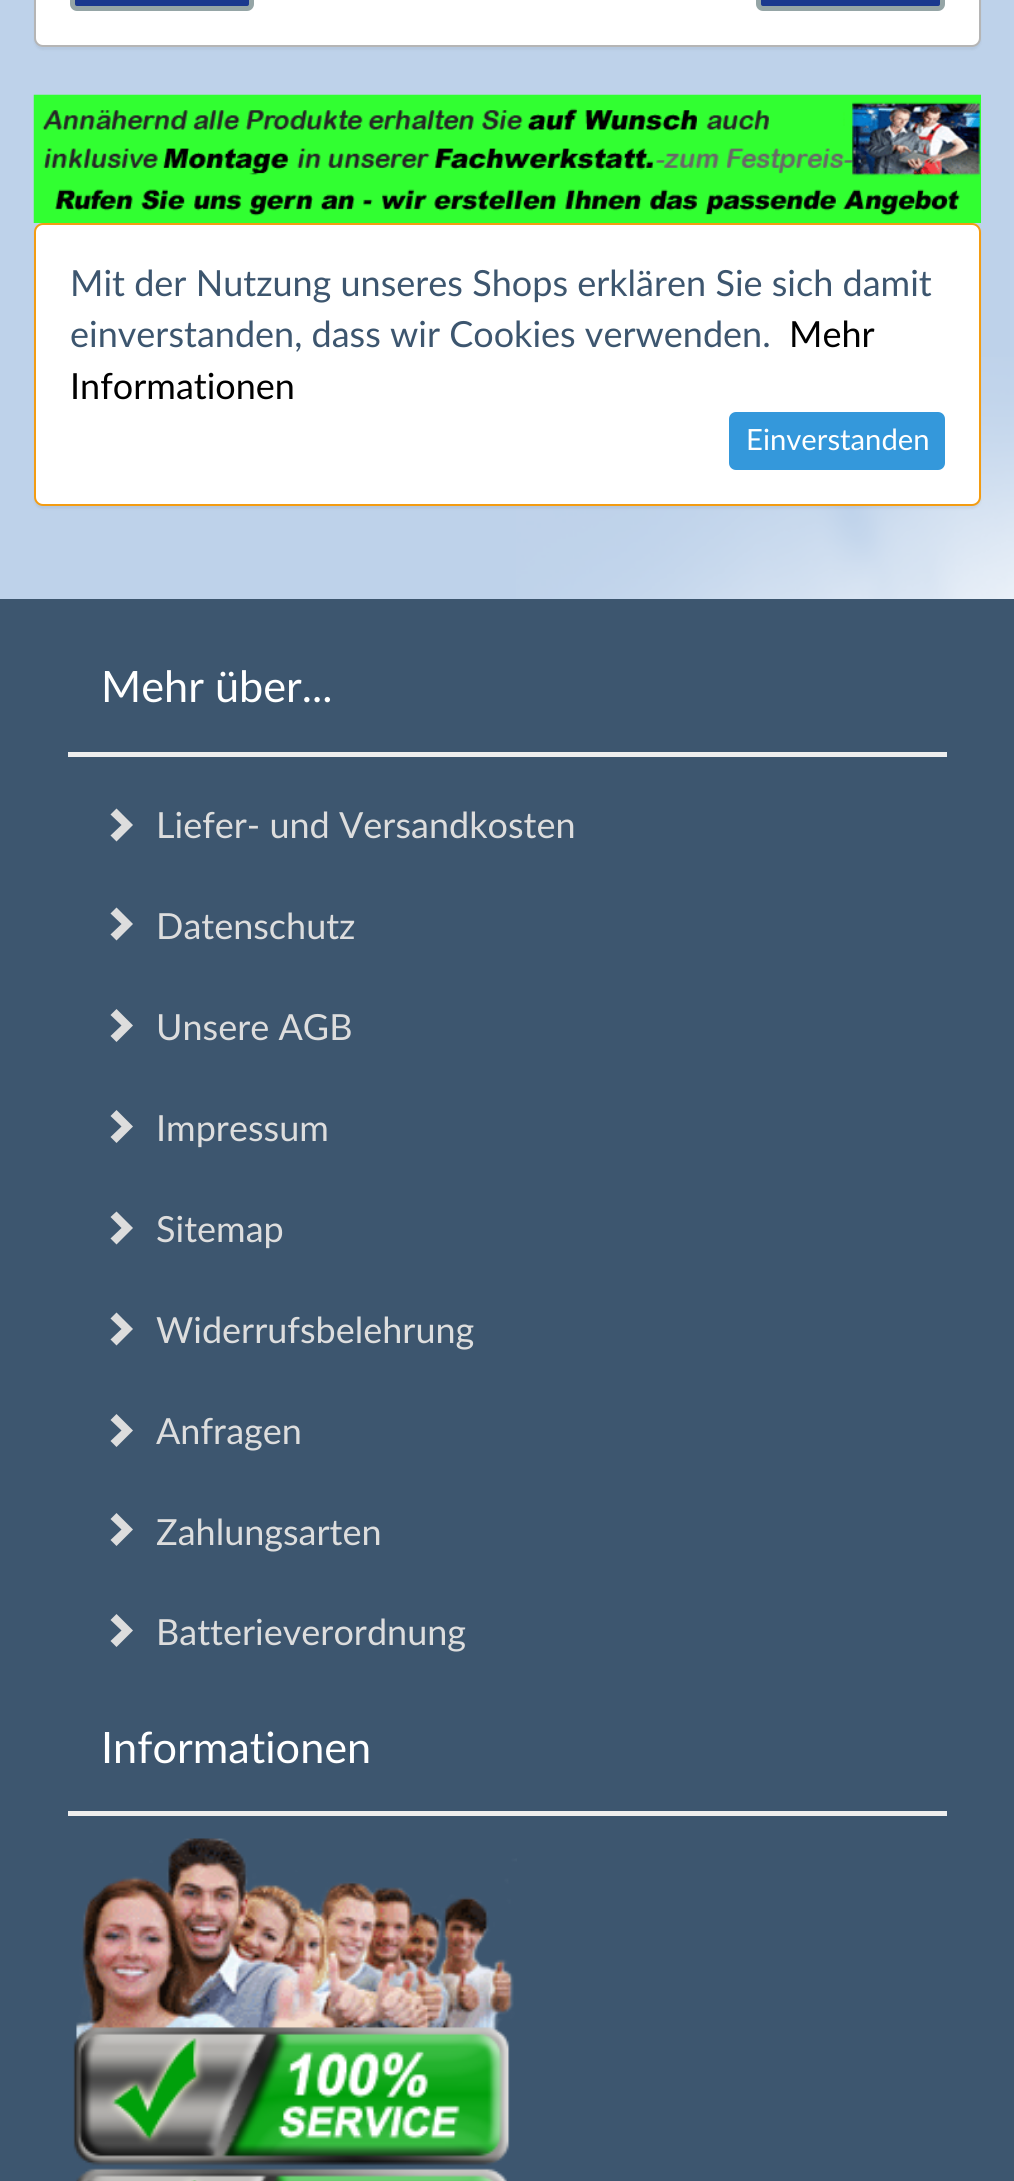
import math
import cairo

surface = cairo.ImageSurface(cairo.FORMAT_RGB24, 1014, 2181)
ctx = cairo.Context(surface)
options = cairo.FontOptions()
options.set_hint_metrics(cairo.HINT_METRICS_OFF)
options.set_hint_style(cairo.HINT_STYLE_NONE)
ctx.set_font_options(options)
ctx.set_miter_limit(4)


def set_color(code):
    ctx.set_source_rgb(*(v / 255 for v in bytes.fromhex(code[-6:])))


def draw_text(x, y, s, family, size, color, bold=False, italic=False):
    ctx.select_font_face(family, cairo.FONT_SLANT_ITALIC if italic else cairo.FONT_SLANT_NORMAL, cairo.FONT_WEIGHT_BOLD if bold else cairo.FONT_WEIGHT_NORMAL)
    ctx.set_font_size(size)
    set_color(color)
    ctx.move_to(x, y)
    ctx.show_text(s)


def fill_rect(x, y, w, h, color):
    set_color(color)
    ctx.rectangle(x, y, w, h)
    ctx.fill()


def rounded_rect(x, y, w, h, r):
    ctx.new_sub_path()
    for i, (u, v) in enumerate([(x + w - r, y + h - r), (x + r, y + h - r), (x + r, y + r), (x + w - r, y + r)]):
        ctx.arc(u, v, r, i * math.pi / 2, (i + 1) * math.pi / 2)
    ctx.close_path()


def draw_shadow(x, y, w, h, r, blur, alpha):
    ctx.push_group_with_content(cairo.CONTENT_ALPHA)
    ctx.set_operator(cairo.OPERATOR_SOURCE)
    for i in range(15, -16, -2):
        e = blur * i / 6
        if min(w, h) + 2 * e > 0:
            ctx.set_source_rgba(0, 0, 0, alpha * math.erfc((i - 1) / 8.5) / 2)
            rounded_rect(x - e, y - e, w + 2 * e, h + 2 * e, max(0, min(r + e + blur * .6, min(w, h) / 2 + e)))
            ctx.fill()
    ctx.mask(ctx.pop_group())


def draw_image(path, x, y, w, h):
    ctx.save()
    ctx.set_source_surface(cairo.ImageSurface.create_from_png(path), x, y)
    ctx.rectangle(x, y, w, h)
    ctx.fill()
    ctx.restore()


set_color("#bed2ea")
ctx.paint()
draw_image("assets/img1.png", 516, 357, 498, 242)
set_color("#000000")
draw_shadow(34, -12, 947, 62, 9, 1, 0.05)
set_color("#ffffff")
rounded_rect(35, -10, 945, 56, 8)
ctx.fill_preserve()
set_color("#b5b5b5")
ctx.stroke()
set_color("#1a388e")
rounded_rect(72.5, -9.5, 179, 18, 4.5)
ctx.fill_preserve()
set_color("#95a5a6")
ctx.set_line_width(5)
ctx.stroke()
set_color("#1a388e")
rounded_rect(758.5, -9.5, 184, 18, 4.5)
ctx.fill_preserve()
set_color("#95a5a6")
ctx.stroke()
set_color("#000000")
draw_shadow(34, 225, 947, 284, 9, 1, 0.05)
draw_image("assets/img2.png", 33, 94, 948, 129)
set_color("#ffffff")
rounded_rect(35, 224, 945, 281, 8)
ctx.fill_preserve()
set_color("#f39c12")
ctx.set_line_width(2)
ctx.stroke()
draw_text(70, 296, "Mit der Nutzung unseres Shops erklären Sie sich damit", "Lato", 36, "#3d566f")
draw_text(70, 347, "einverstanden, dass wir Cookies verwenden.", "Lato", 36, "#3d566f")
draw_text(789, 347, "Mehr", "Lato", 36, "#000000")
draw_text(70, 399, "Informationen", "Lato", 36, "#000000")
set_color("#3498db")
rounded_rect(731.5, 414.5, 211, 53, 4.5)
ctx.fill_preserve()
ctx.set_line_width(5)
ctx.stroke()
draw_text(746, 450, "Einverstanden", "Lato", 29.25, "#ffffff")
fill_rect(0, 599, 1014, 1582, "#3d566f")
fill_rect(68, 752, 879, 5, "#eeeeee")
draw_text(101, 702, "Mehr über...", "Lato", 43.25, "#ffffff")
set_color("#dddddd")
ctx.new_path()
ctx.move_to(133, 825)
ctx.line_to(116.5, 841.5)
ctx.line_to(110.5, 835.5)
ctx.line_to(121.5, 825)
ctx.line_to(110.5, 814.5)
ctx.line_to(116.5, 808.5)
ctx.close_path()
ctx.fill()
draw_text(156, 838, "Liefer- und Versandkosten", "Lato", 36, "#dddddd")
ctx.new_path()
ctx.move_to(133, 924)
ctx.line_to(116.5, 940.5)
ctx.line_to(110.5, 934.5)
ctx.line_to(121.5, 924)
ctx.line_to(110.5, 913.5)
ctx.line_to(116.5, 907.5)
ctx.close_path()
ctx.fill()
draw_text(156, 939, "Datenschutz", "Lato", 36, "#dddddd")
ctx.new_path()
ctx.move_to(133, 1025.5)
ctx.line_to(116.5, 1042)
ctx.line_to(110.5, 1036)
ctx.line_to(121.5, 1025.5)
ctx.line_to(110.5, 1015)
ctx.line_to(116.5, 1009)
ctx.close_path()
ctx.fill()
draw_text(156, 1040, "Unsere AGB", "Lato", 36, "#dddddd")
ctx.new_path()
ctx.move_to(133, 1126.5)
ctx.line_to(116.5, 1143)
ctx.line_to(110.5, 1137)
ctx.line_to(121.5, 1126.5)
ctx.line_to(110.5, 1116)
ctx.line_to(116.5, 1110)
ctx.close_path()
ctx.fill()
draw_text(156, 1141, "Impressum", "Lato", 36, "#dddddd")
ctx.new_path()
ctx.move_to(133, 1228)
ctx.line_to(116.5, 1244.5)
ctx.line_to(110.5, 1238.5)
ctx.line_to(121.5, 1228)
ctx.line_to(110.5, 1217)
ctx.line_to(116.5, 1211.5)
ctx.close_path()
ctx.fill()
draw_text(156, 1242, "Sitemap", "Lato", 36, "#dddddd")
ctx.new_path()
ctx.move_to(133, 1329)
ctx.line_to(116.5, 1345.5)
ctx.line_to(110.5, 1339.5)
ctx.line_to(121.5, 1329)
ctx.line_to(110.5, 1318.5)
ctx.line_to(116.5, 1312.5)
ctx.close_path()
ctx.fill()
draw_text(156, 1343, "Widerrufsbelehrung", "Lato", 36, "#dddddd")
ctx.new_path()
ctx.move_to(133, 1430.5)
ctx.line_to(116.5, 1447)
ctx.line_to(110.5, 1441)
ctx.line_to(121.5, 1430.5)
ctx.line_to(110.5, 1420)
ctx.line_to(116.5, 1414)
ctx.close_path()
ctx.fill()
draw_text(156, 1444, "Anfragen", "Lato", 36, "#dddddd")
ctx.new_path()
ctx.move_to(133, 1529.5)
ctx.line_to(116.5, 1546)
ctx.line_to(110.5, 1540)
ctx.line_to(121.5, 1529.5)
ctx.line_to(110.5, 1519)
ctx.line_to(116.5, 1513)
ctx.close_path()
ctx.fill()
draw_text(156, 1545, "Zahlungsarten", "Lato", 36, "#dddddd")
ctx.new_path()
ctx.move_to(133, 1630.5)
ctx.line_to(116.5, 1647)
ctx.line_to(110.5, 1641)
ctx.line_to(121.5, 1630.5)
ctx.line_to(110.5, 1620)
ctx.line_to(116.5, 1614)
ctx.close_path()
ctx.fill()
draw_text(156, 1645, "Batterieverordnung", "Lato", 36, "#dddddd")
fill_rect(68, 1811, 879, 5, "#eeeeee")
draw_text(101, 1763, "Informationen", "Lato", 43.25, "#ffffff")
draw_image("assets/img3.png", 73, 1838, 444, 343)
surface.write_to_png("output.png")
